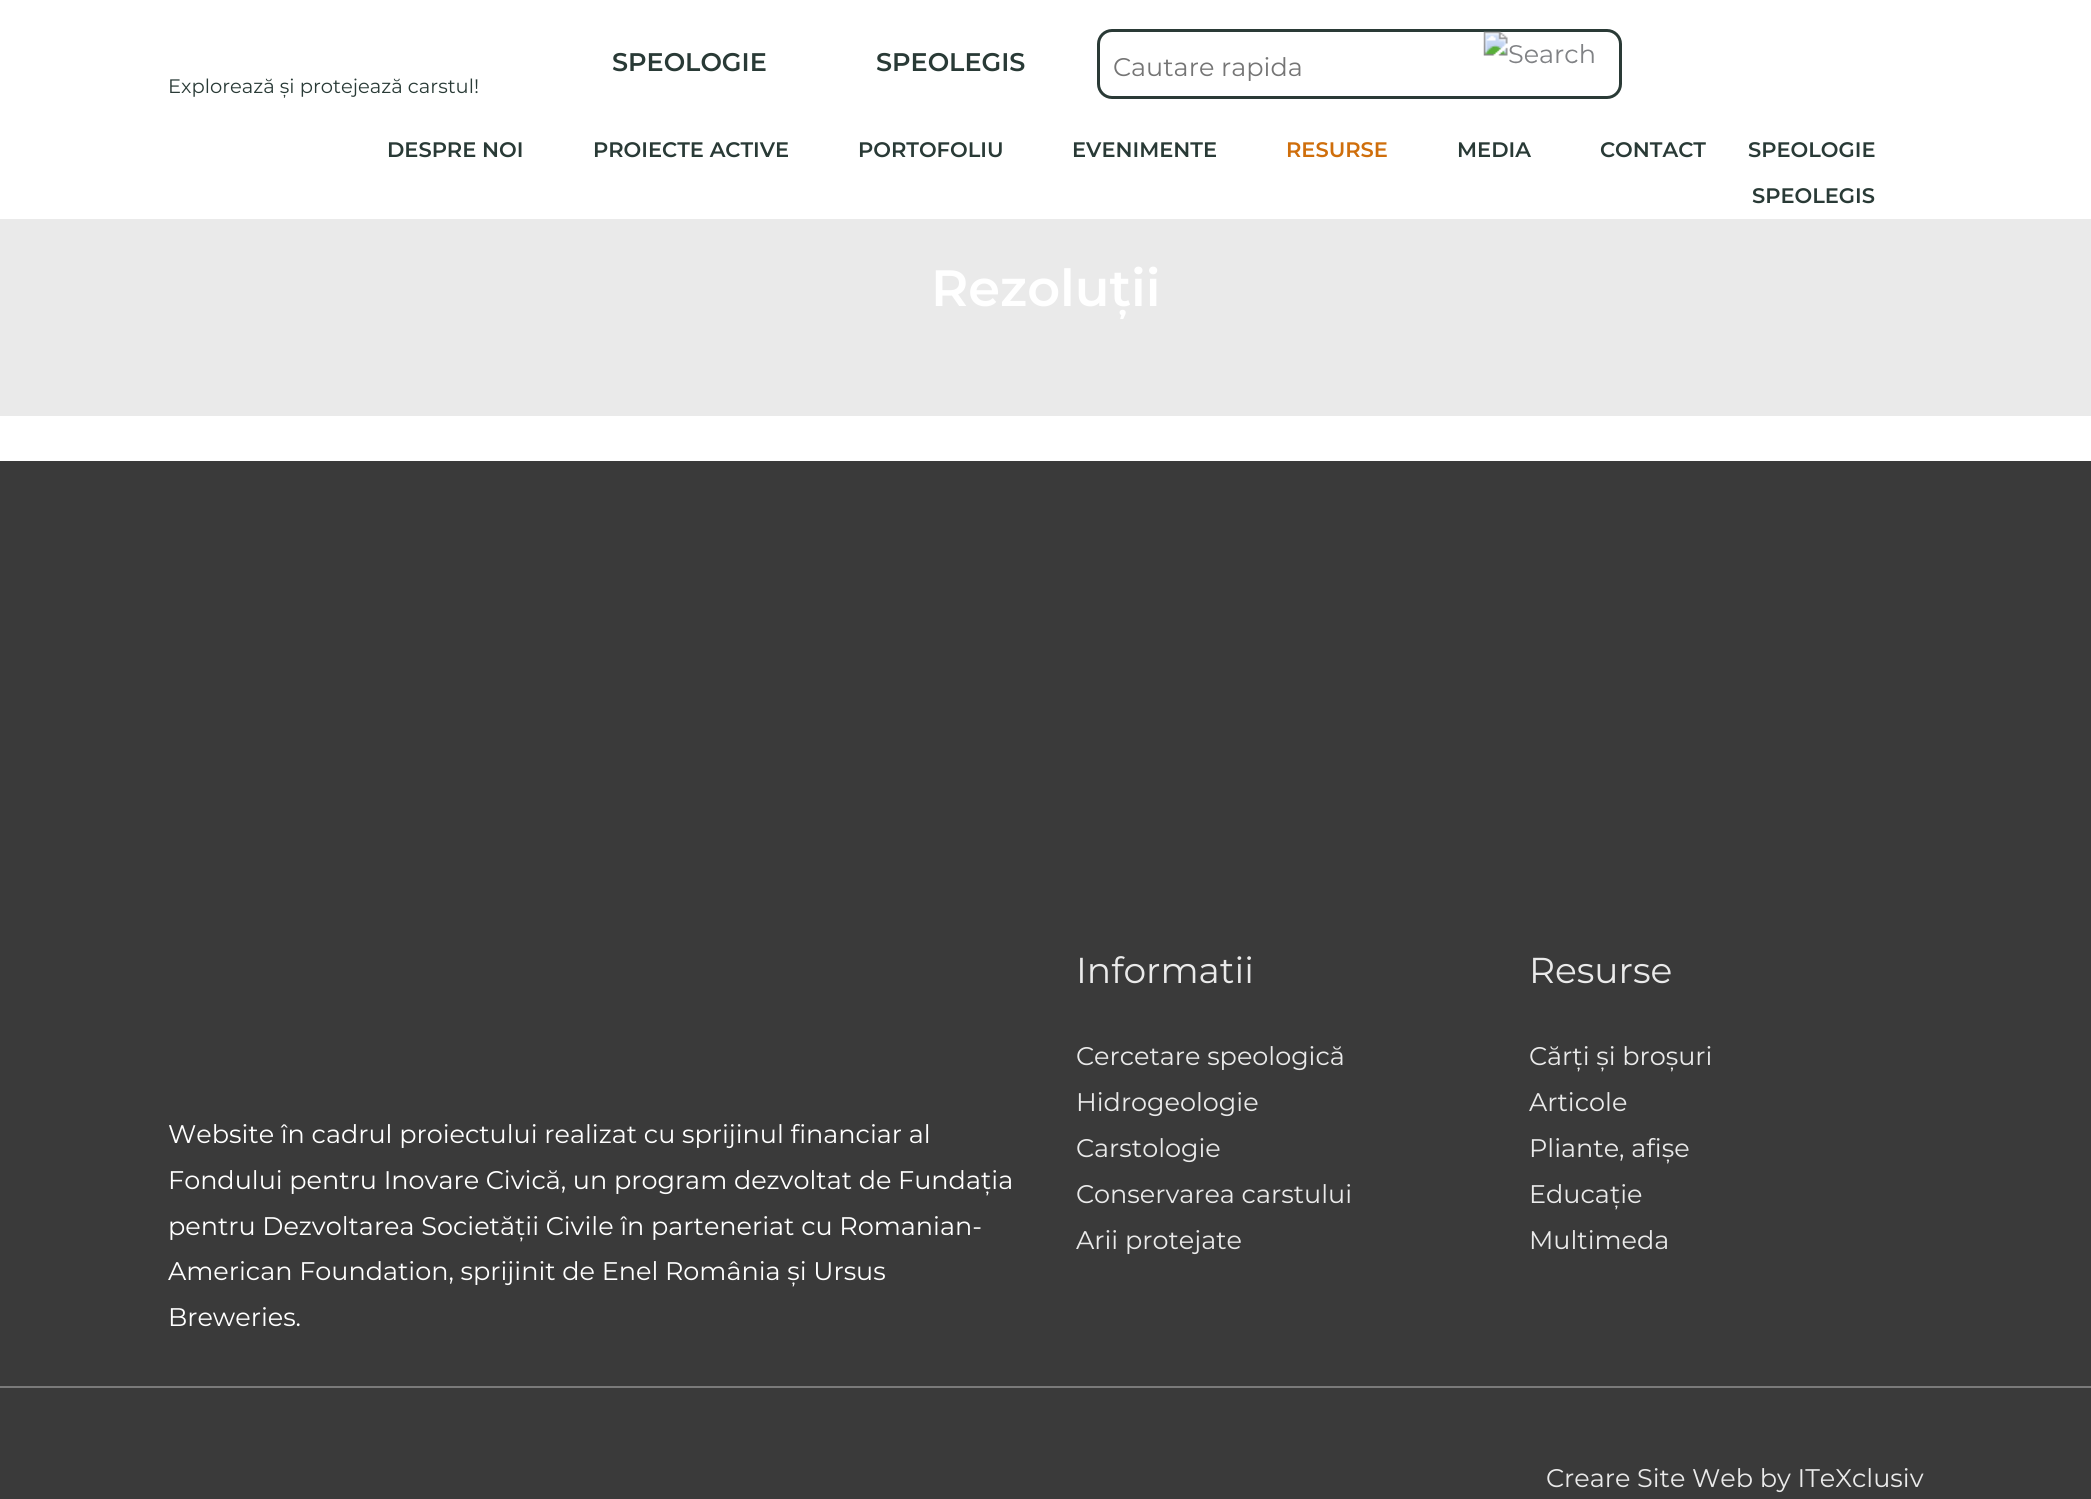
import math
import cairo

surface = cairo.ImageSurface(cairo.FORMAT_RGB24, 2091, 1499)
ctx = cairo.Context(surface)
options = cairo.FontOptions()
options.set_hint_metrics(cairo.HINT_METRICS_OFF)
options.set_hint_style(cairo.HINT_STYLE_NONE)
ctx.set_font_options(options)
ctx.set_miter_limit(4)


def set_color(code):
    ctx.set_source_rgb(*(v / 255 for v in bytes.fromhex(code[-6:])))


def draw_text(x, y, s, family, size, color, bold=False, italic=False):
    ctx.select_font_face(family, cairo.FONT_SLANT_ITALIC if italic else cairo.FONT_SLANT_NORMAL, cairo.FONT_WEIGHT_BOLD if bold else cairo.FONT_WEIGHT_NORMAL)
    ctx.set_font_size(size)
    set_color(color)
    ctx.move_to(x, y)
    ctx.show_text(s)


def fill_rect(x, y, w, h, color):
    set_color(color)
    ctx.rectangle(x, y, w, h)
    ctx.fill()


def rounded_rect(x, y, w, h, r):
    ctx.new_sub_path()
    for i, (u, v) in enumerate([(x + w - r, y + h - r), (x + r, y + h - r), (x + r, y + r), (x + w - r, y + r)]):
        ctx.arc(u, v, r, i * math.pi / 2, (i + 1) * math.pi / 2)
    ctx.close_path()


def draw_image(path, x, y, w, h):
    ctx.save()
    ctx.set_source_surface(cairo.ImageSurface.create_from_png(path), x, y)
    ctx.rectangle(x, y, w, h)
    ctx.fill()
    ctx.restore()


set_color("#ffffff")
ctx.paint()
draw_text(612, 71, "SPEOLOGIE", "Montserrat SemiBold", 25.5, "#293a36")
draw_text(876, 71, "SPEOLEGIS", "Montserrat SemiBold", 25.5, "#293a36")
rounded_rect(1098.5, 30.5, 522, 67, 13.5)
set_color("#2a3a36")
ctx.set_line_width(3)
ctx.stroke()
draw_image("assets/img1.png", 1483, 31, 111, 33)
draw_text(1113, 76, "Cautare rapida", "Montserrat", 25.5, "#757575")
draw_text(168, 93, "Explorează și protejează carstul!", "Montserrat", 19.5, "#293a36")
draw_text(387, 157, "DESPRE NOI", "Montserrat SemiBold", 21, "#293a36")
draw_text(593, 157, "PROIECTE ACTIVE", "Montserrat SemiBold", 21, "#293a36")
draw_text(858, 157, "PORTOFOLIU", "Montserrat SemiBold", 21, "#293a36")
draw_text(1072, 157, "EVENIMENTE", "Montserrat SemiBold", 21, "#293a36")
draw_text(1286, 157, "RESURSE", "Montserrat SemiBold", 21, "#cf6e0b")
draw_text(1457, 157, "MEDIA", "Montserrat SemiBold", 21, "#293a36")
draw_text(1600, 157, "CONTACT", "Montserrat SemiBold", 21, "#293a36")
draw_text(1748, 157, "SPEOLOGIE", "Montserrat SemiBold", 21, "#293a36")
draw_text(1752, 203, "SPEOLEGIS", "Montserrat SemiBold", 21, "#293a36")
fill_rect(0, 219, 2091, 197, "#eaeaea")
draw_text(931, 306, "Rezoluții", "Montserrat SemiBold", 51, "#ffffff")
fill_rect(0, 461, 2091, 925, "#3a3a3a")
draw_text(168, 1143, "Website în cadrul proiectului realizat cu sprijinul financiar al", "Montserrat", 25.5, "#ffffff")
draw_text(168, 1189, "Fondului pentru Inovare Civică, un program dezvoltat de Fundația", "Montserrat", 25.5, "#ffffff")
draw_text(168, 1235, "pentru Dezvoltarea Societății Civile în parteneriat cu Romanian-", "Montserrat", 25.5, "#ffffff")
draw_text(168, 1280, "American Foundation, sprijinit de Enel România și Ursus", "Montserrat", 25.5, "#ffffff")
draw_text(168, 1326, "Breweries.", "Montserrat", 25.5, "#ffffff")
draw_text(1076, 983, "Informatii", "Montserrat", 36, "#eaeaea")
draw_text(1076, 1065, "Cercetare speologică", "Montserrat", 25.5, "#eaeaea")
draw_text(1076, 1111, "Hidrogeologie", "Montserrat", 25.5, "#eaeaea")
draw_text(1076, 1157, "Carstologie", "Montserrat", 25.5, "#eaeaea")
draw_text(1076, 1203, "Conservarea carstului", "Montserrat", 25.5, "#eaeaea")
draw_text(1076, 1249, "Arii protejate", "Montserrat", 25.5, "#eaeaea")
draw_text(1529, 983, "Resurse", "Montserrat", 36, "#eaeaea")
draw_text(1529, 1065, "Cărți și broșuri", "Montserrat", 25.5, "#eaeaea")
draw_text(1529, 1111, "Articole", "Montserrat", 25.5, "#eaeaea")
draw_text(1529, 1157, "Pliante, afișe", "Montserrat", 25.5, "#eaeaea")
draw_text(1529, 1203, "Educație", "Montserrat", 25.5, "#eaeaea")
draw_text(1529, 1249, "Multimeda", "Montserrat", 25.5, "#eaeaea")
fill_rect(0, 1386, 2091, 2, "#7a7a7a")
fill_rect(0, 1388, 2091, 111, "#3a3a3a")
draw_text(1546, 1487, "Creare Site Web by ITeXclusiv", "Montserrat", 25.5, "#eaeaea")
surface.write_to_png("output.png")
